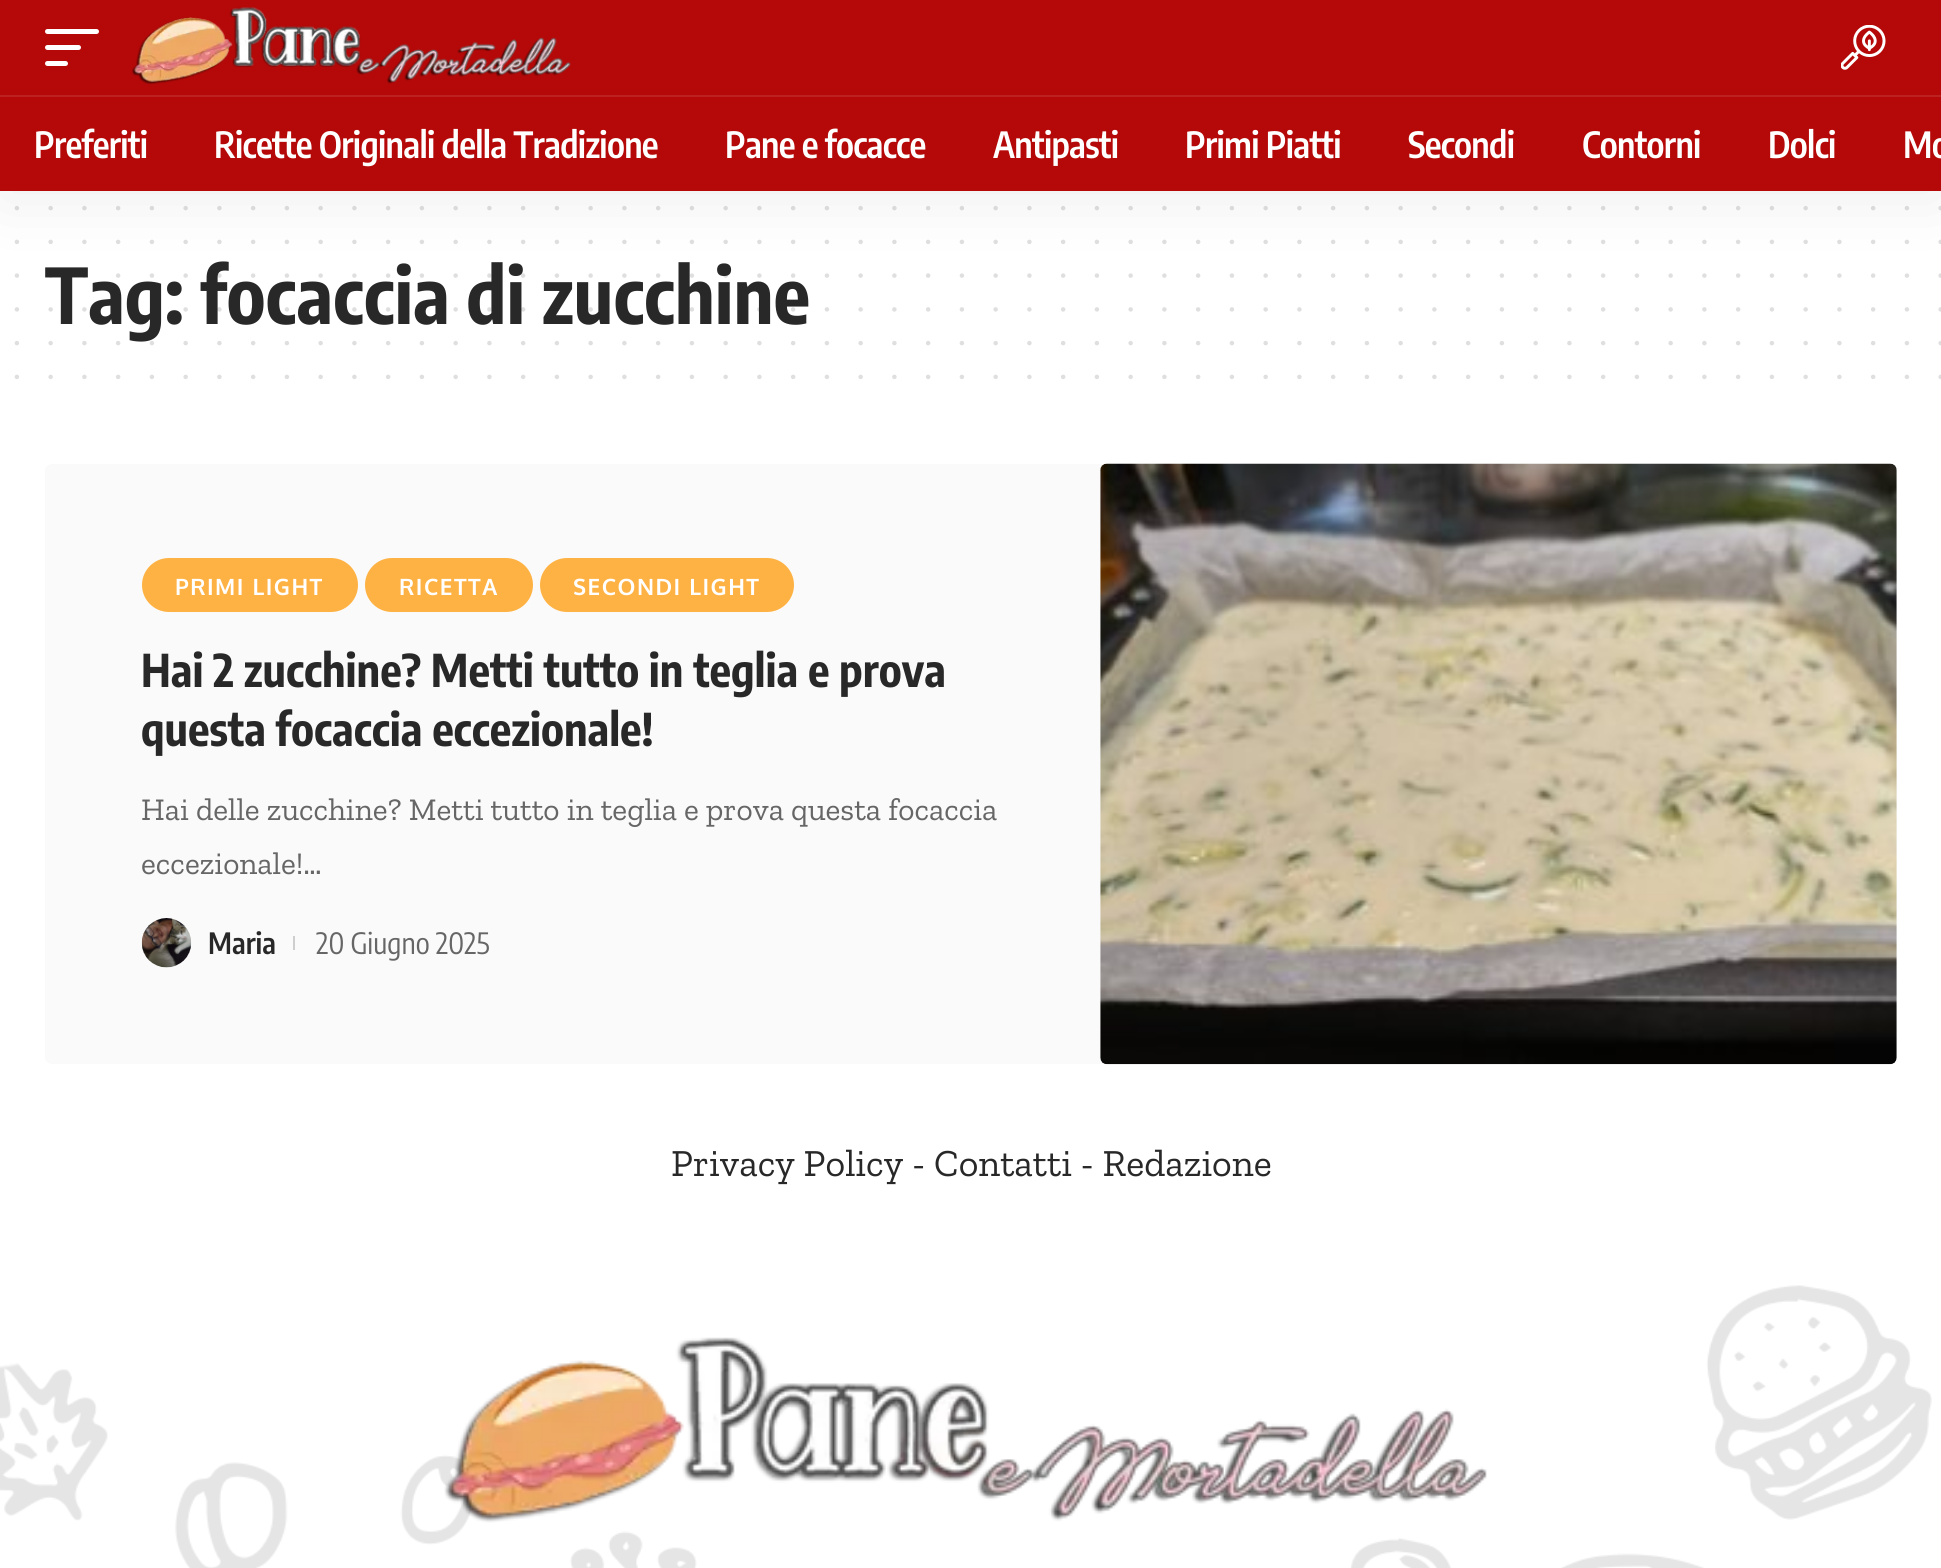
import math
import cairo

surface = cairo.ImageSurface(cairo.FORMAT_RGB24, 1941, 1568)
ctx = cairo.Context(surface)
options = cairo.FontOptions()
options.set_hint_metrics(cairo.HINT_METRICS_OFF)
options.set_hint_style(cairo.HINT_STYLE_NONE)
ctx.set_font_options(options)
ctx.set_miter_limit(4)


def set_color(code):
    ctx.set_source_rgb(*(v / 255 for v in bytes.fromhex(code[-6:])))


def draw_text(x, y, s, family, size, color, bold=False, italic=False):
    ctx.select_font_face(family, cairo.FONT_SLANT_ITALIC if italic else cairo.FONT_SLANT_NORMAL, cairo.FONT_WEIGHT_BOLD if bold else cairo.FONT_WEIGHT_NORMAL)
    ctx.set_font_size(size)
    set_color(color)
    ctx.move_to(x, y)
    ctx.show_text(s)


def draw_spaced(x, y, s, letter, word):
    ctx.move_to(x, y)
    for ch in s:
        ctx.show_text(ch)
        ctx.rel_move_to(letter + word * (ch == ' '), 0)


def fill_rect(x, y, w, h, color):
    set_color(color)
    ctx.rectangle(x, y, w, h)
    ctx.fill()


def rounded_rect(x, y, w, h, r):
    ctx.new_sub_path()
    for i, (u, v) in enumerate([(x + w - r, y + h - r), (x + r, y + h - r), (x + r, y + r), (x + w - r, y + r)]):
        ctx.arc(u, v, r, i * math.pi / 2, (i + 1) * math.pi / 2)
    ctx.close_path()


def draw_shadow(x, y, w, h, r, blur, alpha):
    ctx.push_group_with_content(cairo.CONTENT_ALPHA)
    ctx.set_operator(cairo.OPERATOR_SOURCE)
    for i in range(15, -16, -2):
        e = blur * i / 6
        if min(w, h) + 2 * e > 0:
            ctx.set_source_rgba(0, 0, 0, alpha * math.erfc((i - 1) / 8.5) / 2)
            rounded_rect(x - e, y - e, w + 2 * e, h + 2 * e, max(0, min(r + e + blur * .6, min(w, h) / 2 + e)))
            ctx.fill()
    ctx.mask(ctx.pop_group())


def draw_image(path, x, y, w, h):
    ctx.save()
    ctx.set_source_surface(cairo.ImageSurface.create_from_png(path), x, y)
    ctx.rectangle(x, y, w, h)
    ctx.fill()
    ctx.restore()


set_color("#ffffff")
ctx.paint()
ctx.new_path()
ctx.move_to(16.9, 208.1)
ctx.line_to(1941.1, 208.1)
set_color("#dfdfdf")
ctx.set_line_width(4.5)
ctx.set_line_cap(cairo.LINE_CAP_ROUND)
ctx.set_dash([0, 33.75])
ctx.stroke()
ctx.new_path()
ctx.move_to(16.9, 241.9)
ctx.line_to(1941.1, 241.9)
ctx.stroke()
draw_text(45, 324, "Tag: focaccia di zucchine", "Encode Sans Condensed", 76.5, "#282828", bold=True)
ctx.new_path()
ctx.move_to(16.9, 275.6)
ctx.line_to(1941.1, 275.6)
ctx.set_source_rgba(0.157, 0.157, 0.157, 0.15)
ctx.stroke()
set_color("#000000")
draw_shadow(0, 9, 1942, 191, 0, 34, 0.07)
fill_rect(0, 0, 1941, 191, "#b50909")
set_color("#ffffff")
rounded_rect(45, 29, 54, 5, 2.5)
ctx.fill()
rounded_rect(45, 45, 36, 5, 2.5)
ctx.fill()
rounded_rect(45, 61, 23, 5, 2.5)
ctx.fill()
draw_image("assets/img1.png", 131, 7, 440, 78)
draw_image("assets/img2.png", 1841, 25, 45, 45)
fill_rect(0, 95, 1941, 2, "#bc2222")
ctx.select_font_face("Encode Sans Condensed SemiBold")
ctx.set_font_size(36)
set_color("#ffffff")
draw_spaced(34, 158, "Preferiti", -0.7, 0)
draw_spaced(214, 158, "Ricette Originali della Tradizione", -0.7, 0)
draw_spaced(725, 158, "Pane e focacce", -0.7, 0)
draw_spaced(993, 158, "Antipasti", -0.7, 0)
draw_spaced(1185, 158, "Primi Piatti", -0.7, 0)
draw_spaced(1408, 158, "Secondi", -0.7, 0)
draw_spaced(1582, 158, "Contorni", -0.7, 0)
draw_spaced(1768, 158, "Dolci", -0.7, 0)
draw_spaced(1903, 158, "Mo", -0.7, 0)
ctx.new_path()
ctx.move_to(16.9, 309.4)
ctx.line_to(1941.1, 309.4)
ctx.set_source_rgba(0.157, 0.157, 0.157, 0.15)
ctx.stroke()
ctx.new_path()
ctx.move_to(16.9, 343.1)
ctx.line_to(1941.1, 343.1)
set_color("#dfdfdf")
ctx.stroke()
ctx.new_path()
ctx.move_to(16.9, 376.9)
ctx.line_to(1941.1, 376.9)
ctx.stroke()
set_color("#fafafa")
rounded_rect(45, 464, 1852, 600, 7)
ctx.fill()
set_color("#ffb244")
rounded_rect(142, 558, 216, 54, 27)
ctx.fill()
ctx.select_font_face("Oxygen", cairo.FONT_SLANT_NORMAL, cairo.FONT_WEIGHT_BOLD)
ctx.set_font_size(22.5)
set_color("#ffffff")
draw_spaced(175, 595, "PRIMI LIGHT", 1.5, 0)
set_color("#ffb244")
rounded_rect(365, 558, 168, 54, 27)
ctx.fill()
set_color("#ffffff")
draw_spaced(399, 595, "RICETTA", 1.5, 0)
set_color("#ffb244")
rounded_rect(540, 558, 254, 54, 27)
ctx.fill()
set_color("#ffffff")
draw_spaced(573, 595, "SECONDI LIGHT", 1.5, 0)
draw_text(141, 687, "Hai 2 zucchine? Metti tutto in teglia e prova", "Encode Sans Condensed", 45, "#282828", bold=True)
draw_text(141, 746, "questa focaccia eccezionale!", "Encode Sans Condensed", 45, "#282828", bold=True)
draw_text(141, 820, "Hai delle zucchine? Metti tutto in teglia e prova questa focaccia", "Zilla Slab", 31.5, "#666666")
draw_text(141, 874, "eccezionale!…", "Zilla Slab", 31.5, "#666666")
draw_image("assets/img3.png", 141, 918, 51, 50)
draw_text(208, 954, "Maria", "Encode Sans Condensed SemiBold", 29.25, "#282828")
fill_rect(293, 936, 2, 14, "#cecece")
draw_text(316, 954, "20 Giugno 2025", "Encode Sans Condensed", 29.25, "#666666")
draw_image("assets/img4.png", 1100, 463, 797, 602)
draw_text(671, 1176, "Privacy Policy - Contatti - Redazione", "Zilla Slab", 38.25, "#282828")
draw_image("assets/img5.png", 0, 1285, 1932, 283)
draw_image("assets/img6.png", 444, 1337, 1043, 186)
surface.write_to_png("output.png")
